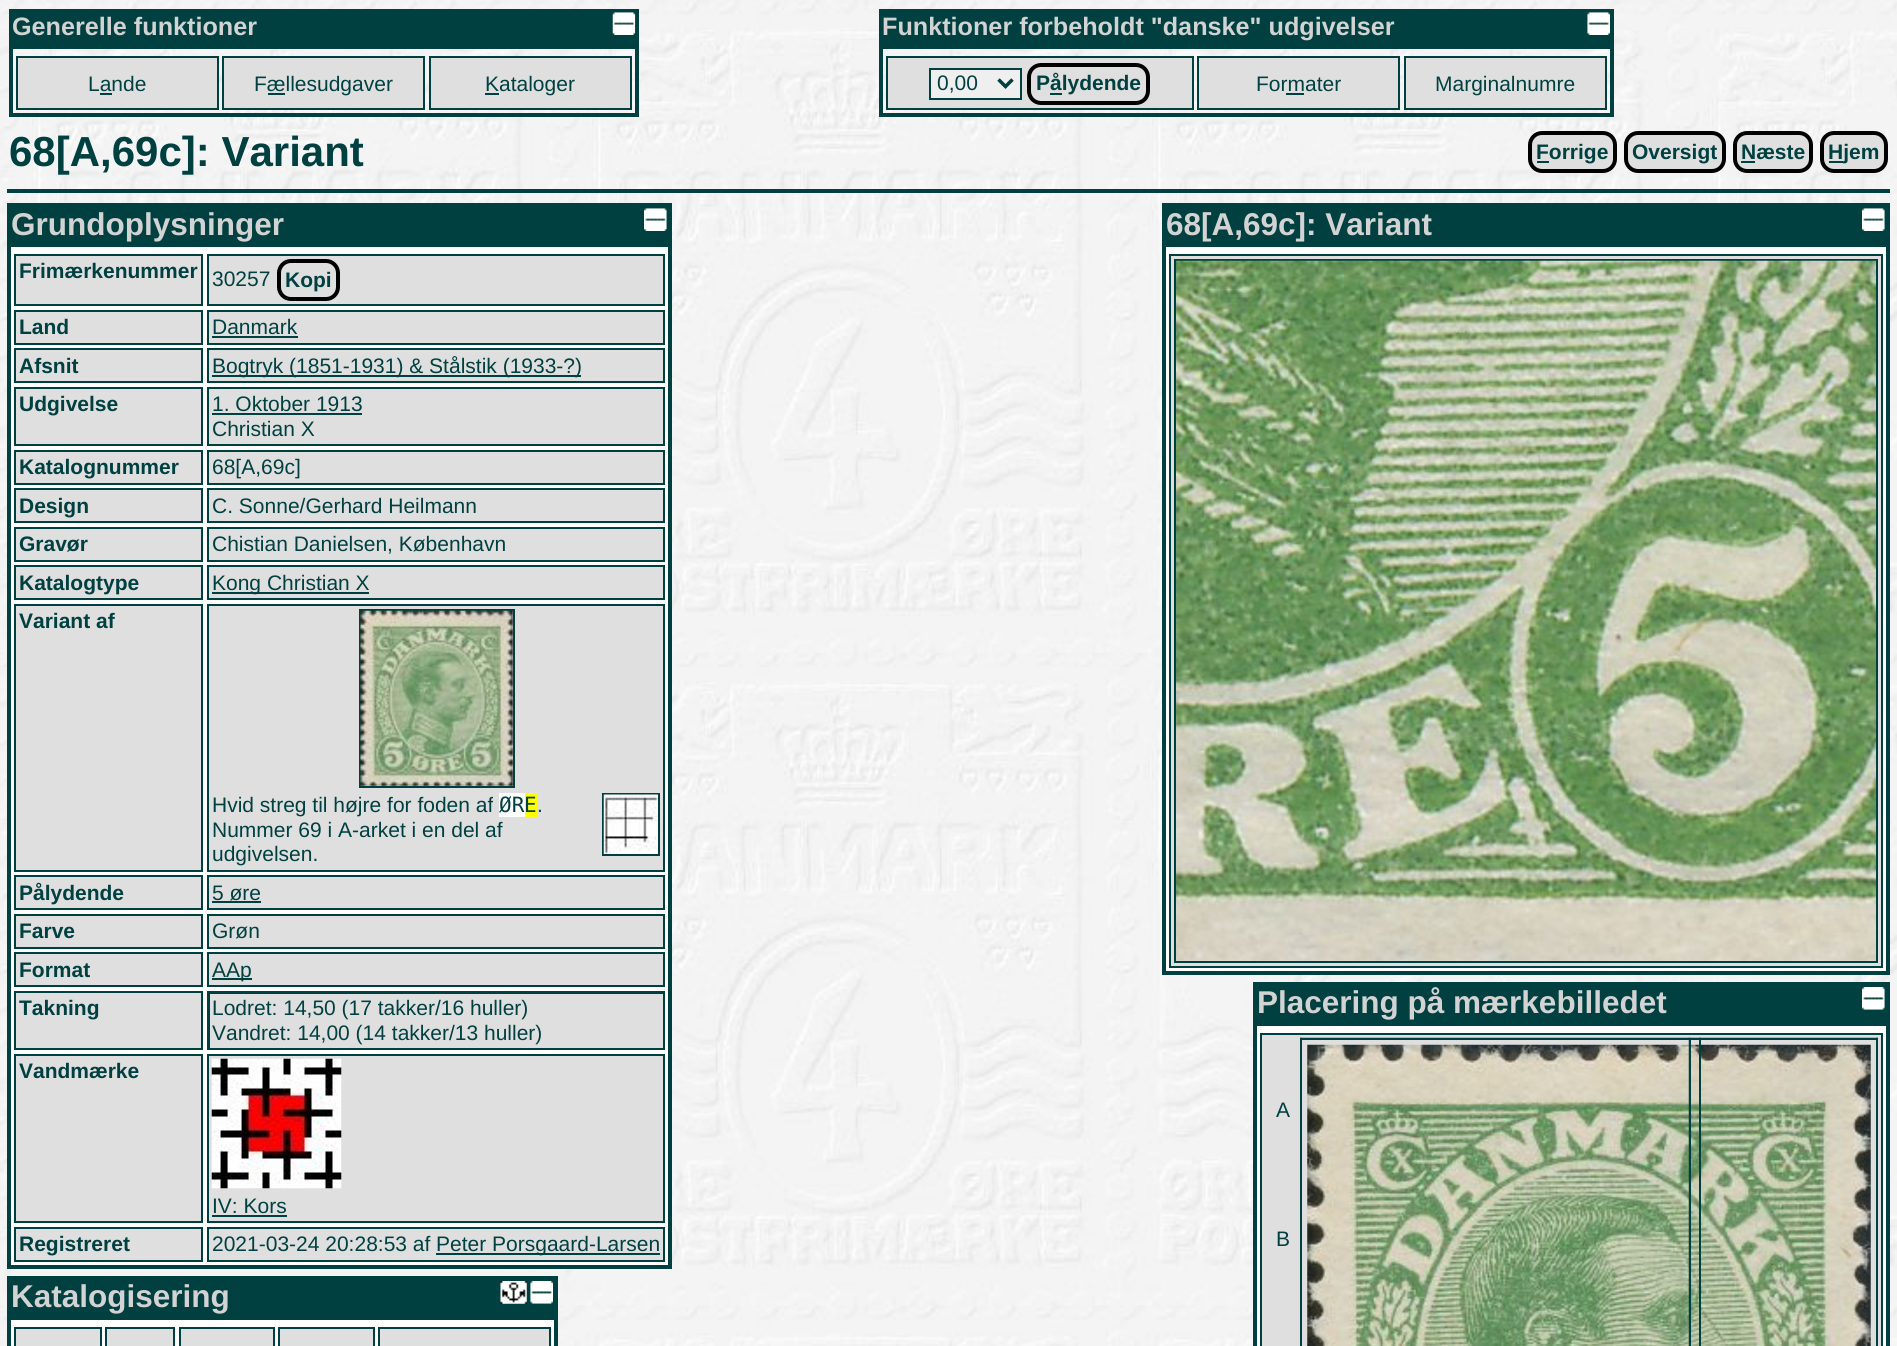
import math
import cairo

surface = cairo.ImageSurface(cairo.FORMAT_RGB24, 1897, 1346)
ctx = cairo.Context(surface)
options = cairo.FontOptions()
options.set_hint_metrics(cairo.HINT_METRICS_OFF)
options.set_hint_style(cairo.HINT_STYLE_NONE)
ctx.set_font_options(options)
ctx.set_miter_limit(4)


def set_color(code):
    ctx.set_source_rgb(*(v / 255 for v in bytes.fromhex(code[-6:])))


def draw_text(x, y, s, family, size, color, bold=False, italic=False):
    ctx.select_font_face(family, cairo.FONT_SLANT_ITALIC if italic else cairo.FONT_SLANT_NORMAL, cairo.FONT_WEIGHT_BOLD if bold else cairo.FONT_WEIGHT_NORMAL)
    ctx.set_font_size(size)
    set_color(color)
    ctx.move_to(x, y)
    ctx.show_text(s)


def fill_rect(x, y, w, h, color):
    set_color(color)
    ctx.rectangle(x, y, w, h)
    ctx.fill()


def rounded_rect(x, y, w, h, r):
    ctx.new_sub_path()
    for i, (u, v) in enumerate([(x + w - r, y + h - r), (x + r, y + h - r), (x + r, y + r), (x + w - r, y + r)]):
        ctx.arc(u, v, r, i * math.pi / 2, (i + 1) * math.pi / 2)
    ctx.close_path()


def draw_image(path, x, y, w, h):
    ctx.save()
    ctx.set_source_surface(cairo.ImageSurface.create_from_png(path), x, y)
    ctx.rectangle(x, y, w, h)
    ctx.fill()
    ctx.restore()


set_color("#ffffff")
ctx.paint()
draw_image("assets/img1.png", 0, 0, 1897, 1346)
ctx.rectangle(11, 11, 626, 104)
set_color("#004040")
ctx.set_line_width(4)
ctx.stroke()
fill_rect(13, 13, 622, 36, "#004040")
draw_text(12, 35, "Generelle funktioner", "Liberation Sans", 25.2, "#d3d3d3", bold=True)
draw_image("assets/img2.png", 612, 12, 24, 23)
set_color("#dfdfdf")
ctx.rectangle(17, 57, 201, 52)
ctx.fill_preserve()
set_color("#004040")
ctx.set_line_width(2)
ctx.stroke()
draw_text(88, 91, "Lande", "Liberation Sans", 21, "#004040")
fill_rect(100, 93, 12, 2, "#004040")
set_color("#dfdfdf")
ctx.rectangle(223, 57, 201, 52)
ctx.fill_preserve()
set_color("#004040")
ctx.stroke()
draw_text(254, 91, "Fællesudgaver", "Liberation Sans", 21, "#004040")
fill_rect(268, 93, 17, 2, "#004040")
set_color("#dfdfdf")
ctx.rectangle(430, 57, 201, 52)
ctx.fill_preserve()
set_color("#004040")
ctx.stroke()
fill_rect(485, 93, 14, 2, "#004040")
draw_text(485, 91, "Kataloger", "Liberation Sans", 21, "#004040")
ctx.rectangle(881, 11, 731, 104)
ctx.set_line_width(4)
ctx.stroke()
fill_rect(883, 13, 727, 36, "#004040")
draw_text(882, 35, "Funktioner forbeholdt \"danske\" udgivelser", "Liberation Sans", 25.2, "#d3d3d3", bold=True)
draw_image("assets/img3.png", 1587, 12, 23, 23)
set_color("#dfdfdf")
ctx.rectangle(887, 57, 306, 52)
ctx.fill_preserve()
set_color("#004040")
ctx.set_line_width(2)
ctx.stroke()
set_color("#efefef")
ctx.rectangle(930, 69, 91, 30)
ctx.fill_preserve()
set_color("#004040")
ctx.stroke()
ctx.new_path()
ctx.move_to(998.5, 79.5)
ctx.line_to(1005.5, 86.5)
ctx.line_to(1012.5, 79.5)
ctx.set_line_width(3.5)
ctx.stroke()
draw_text(937, 90, "0,00", "Liberation Sans", 21, "#004040")
rounded_rect(1029, 65, 119, 38, 12)
set_color("#000000")
ctx.set_line_width(4)
ctx.stroke()
draw_text(1036, 90, "Pålydende", "Liberation Sans", 21, "#004040", bold=True)
fill_rect(1050, 93, 12, 2, "#004040")
set_color("#dfdfdf")
ctx.rectangle(1198, 57, 201, 52)
ctx.fill_preserve()
set_color("#004040")
ctx.set_line_width(2)
ctx.stroke()
draw_text(1256, 91, "Formater", "Liberation Sans", 21, "#004040")
fill_rect(1286, 93, 18, 2, "#004040")
set_color("#dfdfdf")
ctx.rectangle(1405, 57, 201, 52)
ctx.fill_preserve()
set_color("#004040")
ctx.stroke()
draw_text(1435, 91, "Marginalnumre", "Liberation Sans", 21, "#004040")
draw_text(9, 166, "68[A,69c]: Variant", "Liberation Sans", 42, "#004040", bold=True)
set_color("#dfdfdf")
rounded_rect(1530, 133, 85, 38, 12)
ctx.fill_preserve()
set_color("#000000")
ctx.set_line_width(4)
ctx.stroke()
fill_rect(1537, 161, 12, 2, "#004040")
draw_text(1536, 159, "Forrige", "Liberation Sans", 21, "#004040", bold=True)
set_color("#dfdfdf")
rounded_rect(1626, 133, 98, 38, 12)
ctx.fill_preserve()
set_color("#000000")
ctx.stroke()
draw_text(1632, 159, "Oversigt", "Liberation Sans", 21, "#004040", bold=True)
set_color("#dfdfdf")
rounded_rect(1735, 133, 76, 38, 12)
ctx.fill_preserve()
set_color("#000000")
ctx.stroke()
draw_text(1741, 159, "Næste", "Liberation Sans", 21, "#004040", bold=True)
fill_rect(1741, 161, 14, 2, "#004040")
set_color("#dfdfdf")
rounded_rect(1822, 133, 64, 38, 12)
ctx.fill_preserve()
set_color("#000000")
ctx.stroke()
fill_rect(1829, 161, 14, 2, "#004040")
draw_text(1828, 159, "Hjem", "Liberation Sans", 21, "#004040", bold=True)
fill_rect(7, 189, 1883, 4, "#004040")
fill_rect(11, 247, 657, 1018, "#ffffff")
ctx.rectangle(9, 205, 661, 1062)
set_color("#004040")
ctx.stroke()
fill_rect(11, 207, 657, 40, "#004040")
draw_text(11, 235, "Grundoplysninger", "Liberation Sans", 31.5, "#d3d3d3", bold=True)
draw_image("assets/img4.png", 644, 208, 23, 23)
set_color("#dfdfdf")
ctx.rectangle(15, 255, 187, 50)
ctx.fill_preserve()
set_color("#004040")
ctx.set_line_width(2)
ctx.stroke()
draw_text(19, 278, "Frimærkenummer", "Liberation Sans", 21, "#004040", bold=True)
set_color("#dfdfdf")
ctx.rectangle(208, 255, 456, 50)
ctx.fill_preserve()
set_color("#004040")
ctx.stroke()
draw_text(212, 286, "30257", "Liberation Sans", 21, "#004040")
rounded_rect(279, 261, 59, 38, 12)
set_color("#000000")
ctx.set_line_width(4)
ctx.stroke()
draw_text(285, 287, "Kopi", "Liberation Sans", 21, "#004040", bold=True)
set_color("#dfdfdf")
ctx.rectangle(15, 311, 187, 33)
ctx.fill_preserve()
set_color("#004040")
ctx.set_line_width(2)
ctx.stroke()
draw_text(19, 334, "Land", "Liberation Sans", 21, "#004040", bold=True)
set_color("#dfdfdf")
ctx.rectangle(208, 311, 456, 33)
ctx.fill_preserve()
set_color("#004040")
ctx.stroke()
draw_text(212, 334, "Danmark", "Liberation Sans", 21, "#004040")
fill_rect(212, 336, 86, 2, "#004040")
set_color("#dfdfdf")
ctx.rectangle(15, 349, 187, 33)
ctx.fill_preserve()
set_color("#004040")
ctx.stroke()
draw_text(19, 373, "Afsnit", "Liberation Sans", 21, "#004040", bold=True)
set_color("#dfdfdf")
ctx.rectangle(208, 349, 456, 33)
ctx.fill_preserve()
set_color("#004040")
ctx.stroke()
fill_rect(212, 375, 369, 2, "#004040")
draw_text(212, 373, "Bogtryk (1851-1931) & Stålstik (1933-?)", "Liberation Sans", 21, "#004040")
set_color("#dfdfdf")
ctx.rectangle(15, 388, 187, 57)
ctx.fill_preserve()
set_color("#004040")
ctx.stroke()
draw_text(19, 411, "Udgivelse", "Liberation Sans", 21, "#004040", bold=True)
set_color("#dfdfdf")
ctx.rectangle(208, 388, 456, 57)
ctx.fill_preserve()
set_color("#004040")
ctx.stroke()
draw_text(212, 411, "1. Oktober 1913", "Liberation Sans", 21, "#004040")
fill_rect(212, 413, 150, 2, "#004040")
draw_text(212, 436, "Christian X", "Liberation Sans", 21, "#004040")
set_color("#dfdfdf")
ctx.rectangle(15, 451, 187, 33)
ctx.fill_preserve()
set_color("#004040")
ctx.stroke()
draw_text(19, 474, "Katalognummer", "Liberation Sans", 21, "#004040", bold=True)
set_color("#dfdfdf")
ctx.rectangle(208, 451, 456, 33)
ctx.fill_preserve()
set_color("#004040")
ctx.stroke()
draw_text(212, 474, "68[A,69c]", "Liberation Sans", 21, "#004040")
set_color("#dfdfdf")
ctx.rectangle(15, 489, 187, 33)
ctx.fill_preserve()
set_color("#004040")
ctx.stroke()
draw_text(19, 513, "Design", "Liberation Sans", 21, "#004040", bold=True)
set_color("#dfdfdf")
ctx.rectangle(208, 489, 456, 33)
ctx.fill_preserve()
set_color("#004040")
ctx.stroke()
draw_text(212, 513, "C. Sonne/Gerhard Heilmann", "Liberation Sans", 21, "#004040")
set_color("#dfdfdf")
ctx.rectangle(15, 528, 187, 33)
ctx.fill_preserve()
set_color("#004040")
ctx.stroke()
draw_text(19, 551, "Gravør", "Liberation Sans", 21, "#004040", bold=True)
set_color("#dfdfdf")
ctx.rectangle(208, 528, 456, 33)
ctx.fill_preserve()
set_color("#004040")
ctx.stroke()
draw_text(212, 551, "Chistian Danielsen, København", "Liberation Sans", 21, "#004040")
set_color("#dfdfdf")
ctx.rectangle(15, 566, 187, 33)
ctx.fill_preserve()
set_color("#004040")
ctx.stroke()
draw_text(19, 590, "Katalogtype", "Liberation Sans", 21, "#004040", bold=True)
set_color("#dfdfdf")
ctx.rectangle(208, 566, 456, 33)
ctx.fill_preserve()
set_color("#004040")
ctx.stroke()
fill_rect(212, 592, 157, 2, "#004040")
draw_text(212, 590, "Kong Christian X", "Liberation Sans", 21, "#004040")
set_color("#dfdfdf")
ctx.rectangle(15, 605, 187, 266)
ctx.fill_preserve()
set_color("#004040")
ctx.stroke()
draw_text(19, 628, "Variant af", "Liberation Sans", 21, "#004040", bold=True)
set_color("#dfdfdf")
ctx.rectangle(208, 605, 456, 266)
ctx.fill_preserve()
set_color("#004040")
ctx.stroke()
ctx.rectangle(360, 610, 154, 177)
ctx.stroke()
draw_image("assets/img5.png", 360, 610, 153, 176)
draw_text(212, 812, "Hvid streg til højre for foden af", "Liberation Sans", 21, "#004040")
fill_rect(499, 793, 26, 24, "#ffffff")
draw_text(499, 812, "ØR", "DejaVu Sans Mono", 21, "#004040")
fill_rect(525, 793, 12, 24, "#ffff00")
draw_text(524, 812, "E", "DejaVu Sans Mono", 21, "#004040")
draw_text(537, 812, ".", "Liberation Sans", 21, "#004040")
ctx.rectangle(603, 794, 56, 61)
ctx.stroke()
draw_image("assets/img6.png", 603, 794, 55, 60)
draw_text(212, 837, "Nummer 69 i A-arket i en del af", "Liberation Sans", 21, "#004040")
draw_text(212, 861, "udgivelsen.", "Liberation Sans", 21, "#004040")
set_color("#dfdfdf")
ctx.rectangle(15, 876, 187, 33)
ctx.fill_preserve()
set_color("#004040")
ctx.stroke()
draw_text(19, 900, "Pålydende", "Liberation Sans", 21, "#004040", bold=True)
set_color("#dfdfdf")
ctx.rectangle(208, 876, 456, 33)
ctx.fill_preserve()
set_color("#004040")
ctx.stroke()
draw_text(212, 900, "5 øre", "Liberation Sans", 21, "#004040")
fill_rect(212, 901, 49, 2, "#004040")
set_color("#dfdfdf")
ctx.rectangle(15, 915, 187, 33)
ctx.fill_preserve()
set_color("#004040")
ctx.stroke()
draw_text(19, 938, "Farve", "Liberation Sans", 21, "#004040", bold=True)
set_color("#dfdfdf")
ctx.rectangle(208, 915, 456, 33)
ctx.fill_preserve()
set_color("#004040")
ctx.stroke()
draw_text(212, 938, "Grøn", "Liberation Sans", 21, "#004040")
set_color("#dfdfdf")
ctx.rectangle(15, 953, 187, 33)
ctx.fill_preserve()
set_color("#004040")
ctx.stroke()
draw_text(19, 977, "Format", "Liberation Sans", 21, "#004040", bold=True)
set_color("#dfdfdf")
ctx.rectangle(208, 953, 456, 33)
ctx.fill_preserve()
set_color("#004040")
ctx.stroke()
fill_rect(212, 978, 40, 2, "#004040")
draw_text(212, 977, "AAp", "Liberation Sans", 21, "#004040")
set_color("#dfdfdf")
ctx.rectangle(15, 992, 187, 57)
ctx.fill_preserve()
set_color("#004040")
ctx.stroke()
draw_text(19, 1015, "Takning", "Liberation Sans", 21, "#004040", bold=True)
set_color("#dfdfdf")
ctx.rectangle(209, 993, 455, 56)
ctx.fill_preserve()
set_color("#004040")
ctx.stroke()
fill_rect(207, 991, 458, 2, "#004040")
fill_rect(207, 991, 1, 59, "#004040")
draw_text(212, 1015, "Lodret: 14,50 (17 takker/16 huller)", "Liberation Sans", 21, "#004040")
draw_text(212, 1040, "Vandret: 14,00 (14 takker/13 huller)", "Liberation Sans", 21, "#004040")
set_color("#dfdfdf")
ctx.rectangle(15, 1055, 187, 167)
ctx.fill_preserve()
set_color("#004040")
ctx.stroke()
draw_text(19, 1078, "Vandmærke", "Liberation Sans", 21, "#004040", bold=True)
set_color("#dfdfdf")
ctx.rectangle(208, 1055, 456, 167)
ctx.fill_preserve()
set_color("#004040")
ctx.stroke()
draw_image("assets/img7.png", 211, 1058, 131, 131)
draw_text(212, 1213, "IV: Kors", "Liberation Sans", 21, "#004040")
fill_rect(212, 1215, 75, 2, "#004040")
set_color("#dfdfdf")
ctx.rectangle(15, 1228, 187, 33)
ctx.fill_preserve()
set_color("#004040")
ctx.stroke()
draw_text(19, 1251, "Registreret", "Liberation Sans", 21, "#004040", bold=True)
set_color("#dfdfdf")
ctx.rectangle(208, 1228, 456, 33)
ctx.fill_preserve()
set_color("#004040")
ctx.stroke()
draw_text(212, 1251, "2021-03-24 20:28:53 af", "Liberation Sans", 21, "#004040")
fill_rect(436, 1253, 224, 2, "#004040")
draw_text(436, 1251, "Peter Porsgaard-Larsen", "Liberation Sans", 21, "#004040")
fill_rect(11, 1320, 543, 26, "#ffffff")
ctx.rectangle(9, 1278, 547, 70)
set_color("#004040")
ctx.set_line_width(4)
ctx.stroke()
fill_rect(11, 1280, 543, 40, "#004040")
draw_text(11, 1307, "Katalogisering", "Liberation Sans", 31.5, "#d3d3d3", bold=True)
draw_image("assets/img8.png", 500, 1281, 27, 23)
draw_image("assets/img9.png", 530, 1281, 23, 23)
set_color("#dfdfdf")
ctx.rectangle(15, 1328, 86, 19)
ctx.fill_preserve()
set_color("#004040")
ctx.set_line_width(2)
ctx.stroke()
set_color("#dfdfdf")
ctx.rectangle(106, 1328, 68, 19)
ctx.fill_preserve()
set_color("#004040")
ctx.stroke()
set_color("#dfdfdf")
ctx.rectangle(180, 1328, 94, 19)
ctx.fill_preserve()
set_color("#004040")
ctx.stroke()
set_color("#dfdfdf")
ctx.rectangle(279, 1328, 95, 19)
ctx.fill_preserve()
set_color("#004040")
ctx.stroke()
set_color("#dfdfdf")
ctx.rectangle(379, 1328, 171, 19)
ctx.fill_preserve()
set_color("#004040")
ctx.stroke()
fill_rect(1166, 247, 720, 724, "#ffffff")
ctx.rectangle(1164, 205, 724, 768)
set_color("#004040")
ctx.set_line_width(4)
ctx.stroke()
fill_rect(1166, 207, 720, 40, "#004040")
draw_text(1166, 235, "68[A,69c]: Variant", "Liberation Sans", 31.5, "#d3d3d3", bold=True)
draw_image("assets/img4.png", 1862, 208, 23, 23)
set_color("#dfdfdf")
ctx.rectangle(1170, 255, 712, 712)
ctx.fill_preserve()
set_color("#004040")
ctx.set_line_width(2)
ctx.stroke()
ctx.rectangle(1175, 260, 702, 702)
ctx.stroke()
draw_image("assets/img10.png", 1176, 260, 700, 701)
fill_rect(1257, 1026, 629, 320, "#ffffff")
ctx.rectangle(1255, 984, 633, 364)
set_color("#004040")
ctx.set_line_width(4)
ctx.stroke()
fill_rect(1257, 986, 629, 40, "#004040")
draw_text(1257, 1013, "Placering på mærkebilledet", "Liberation Sans", 31.5, "#d3d3d3", bold=True)
draw_image("assets/img11.png", 1862, 987, 23, 23)
set_color("#dfdfdf")
ctx.rectangle(1261, 1034, 621, 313)
ctx.fill_preserve()
set_color("#004040")
ctx.set_line_width(2)
ctx.stroke()
draw_text(1276, 1117, "A", "Liberation Sans", 21, "#004040")
draw_text(1276, 1246, "B", "Liberation Sans", 21, "#004040")
draw_image("assets/img12.png", 1300, 1037, 578, 309)
fill_rect(1300, 1038, 578, 2, "#004040")
fill_rect(1877, 1038, 1, 308, "#004040")
fill_rect(1300, 1038, 1, 308, "#004040")
fill_rect(1690, 1038, 1, 308, "#004040")
fill_rect(1699, 1038, 1, 308, "#004040")
surface.write_to_png("output.png")
